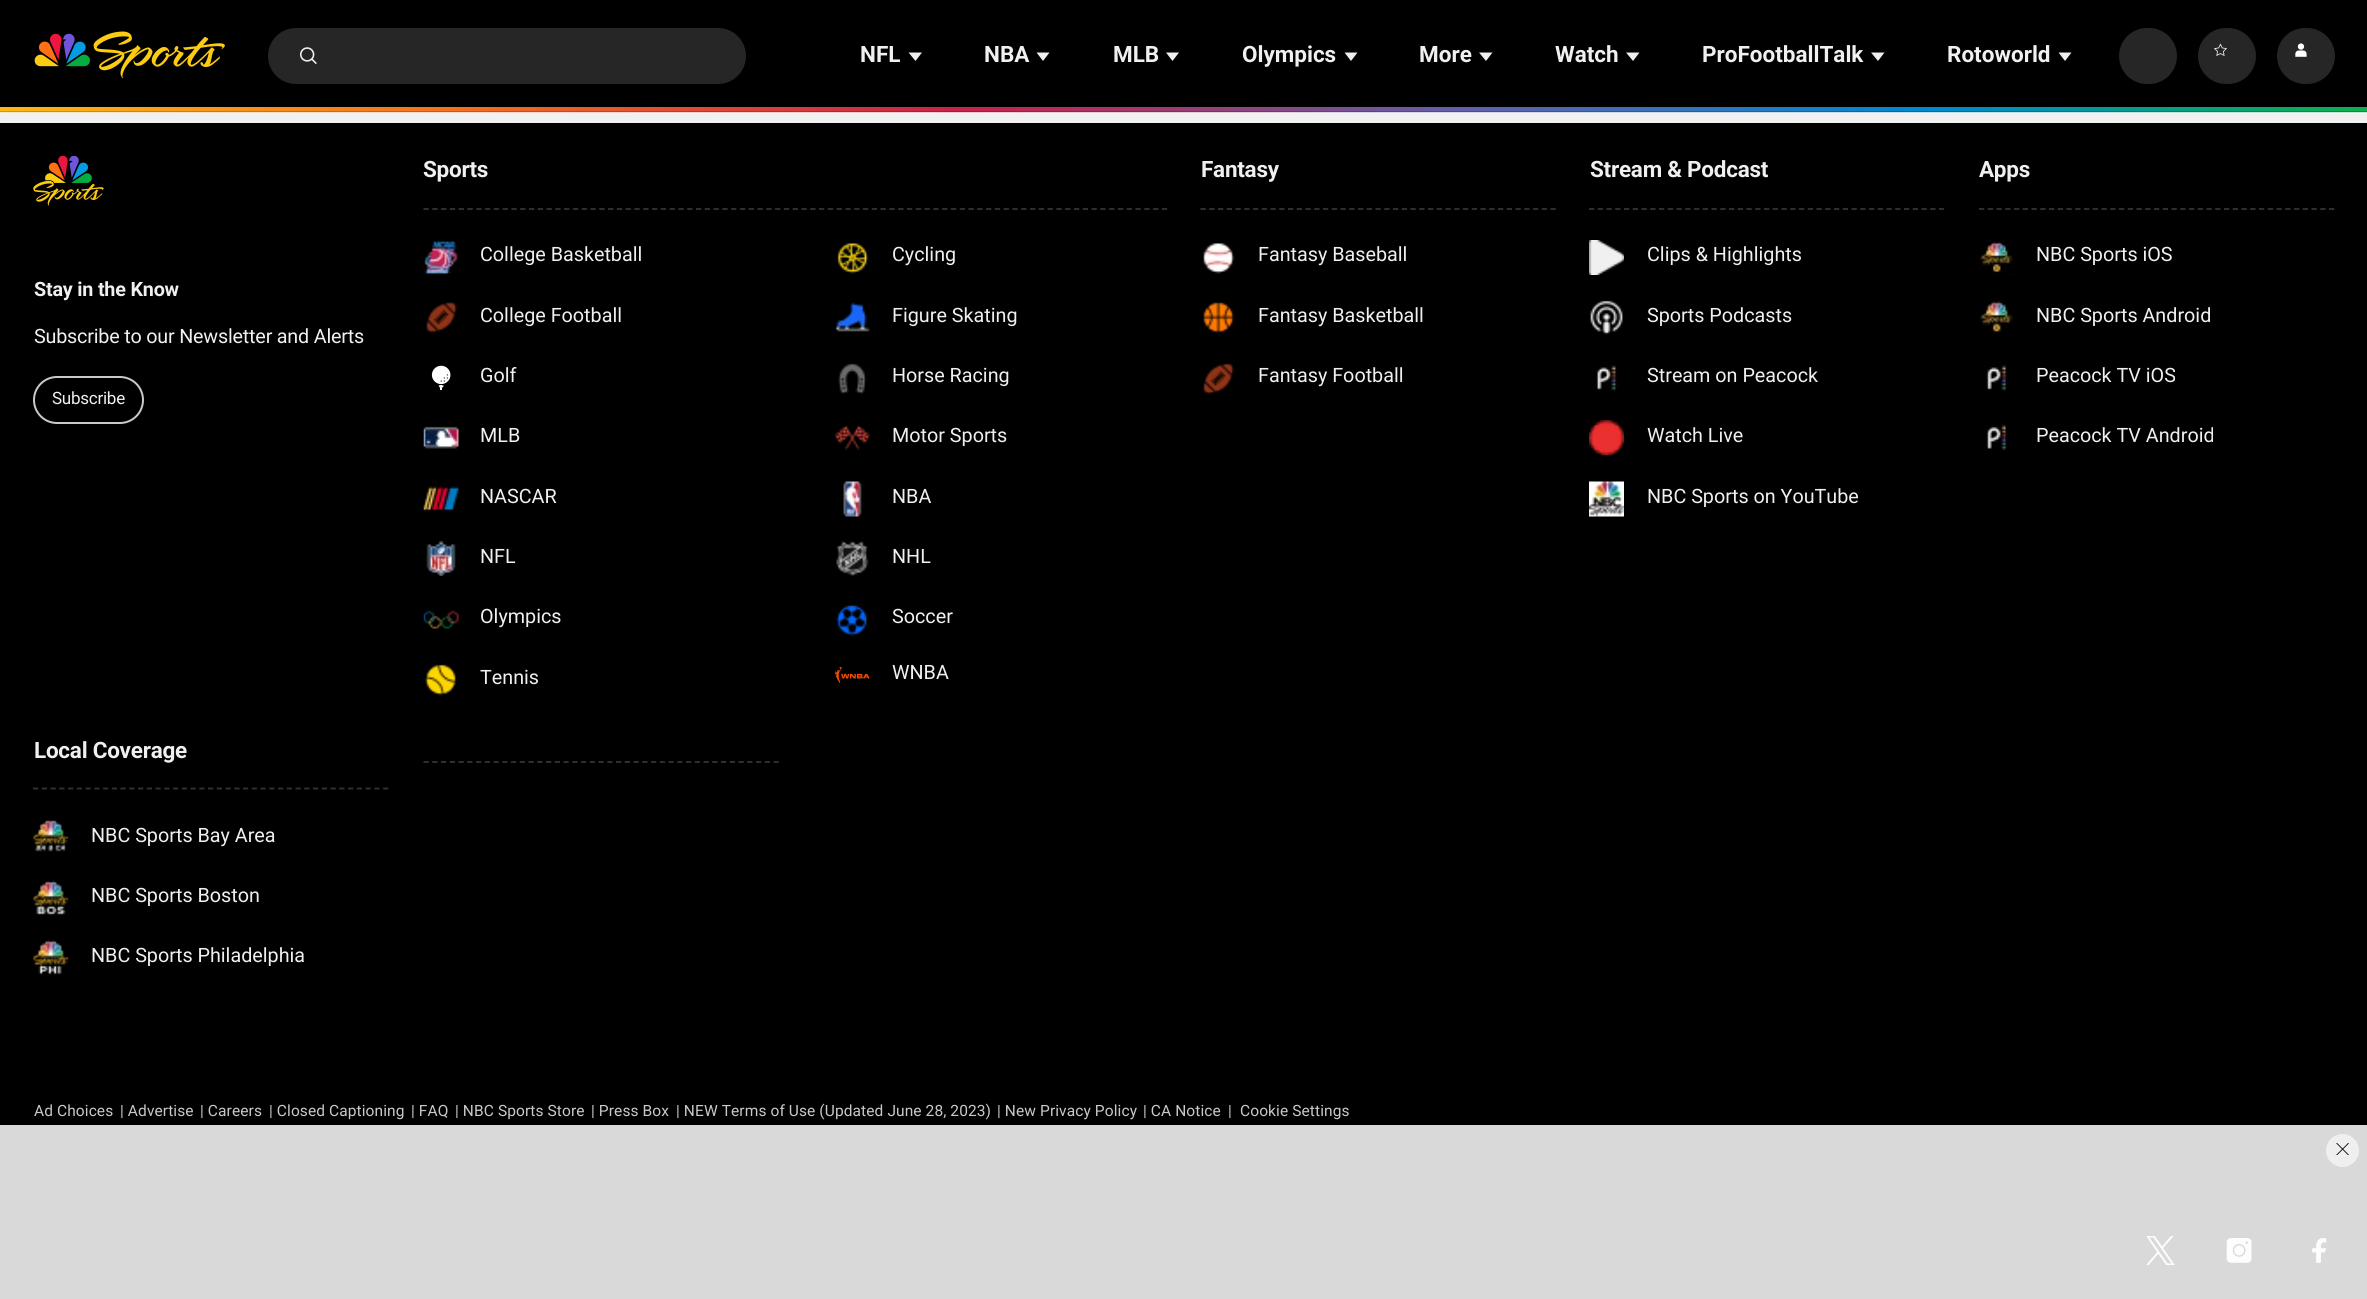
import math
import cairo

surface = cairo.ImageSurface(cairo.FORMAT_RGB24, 2367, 1299)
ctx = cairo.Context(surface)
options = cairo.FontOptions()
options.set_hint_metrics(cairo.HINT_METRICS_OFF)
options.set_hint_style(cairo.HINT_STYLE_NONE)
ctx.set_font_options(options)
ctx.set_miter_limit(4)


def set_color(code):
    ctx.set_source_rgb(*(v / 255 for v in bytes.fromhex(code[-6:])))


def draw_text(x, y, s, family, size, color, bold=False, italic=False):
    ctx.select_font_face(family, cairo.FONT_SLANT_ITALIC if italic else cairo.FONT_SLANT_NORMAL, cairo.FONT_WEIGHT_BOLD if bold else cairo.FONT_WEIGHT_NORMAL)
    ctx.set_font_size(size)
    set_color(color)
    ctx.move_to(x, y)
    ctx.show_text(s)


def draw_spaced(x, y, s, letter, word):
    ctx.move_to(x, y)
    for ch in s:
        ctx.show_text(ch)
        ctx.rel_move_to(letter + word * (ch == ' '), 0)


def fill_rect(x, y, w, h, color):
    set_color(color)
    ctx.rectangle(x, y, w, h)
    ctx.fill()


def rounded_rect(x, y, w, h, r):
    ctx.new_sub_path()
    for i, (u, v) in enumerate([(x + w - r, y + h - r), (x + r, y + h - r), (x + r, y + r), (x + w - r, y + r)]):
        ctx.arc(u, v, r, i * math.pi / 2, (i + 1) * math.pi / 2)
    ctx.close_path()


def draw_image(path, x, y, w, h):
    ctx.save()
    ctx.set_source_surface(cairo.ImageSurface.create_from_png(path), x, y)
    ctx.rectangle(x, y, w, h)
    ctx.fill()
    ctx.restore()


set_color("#f1f1f1")
ctx.paint()
fill_rect(0, 0, 2367, 112, "#000000")
draw_image("assets/img1.png", 34, 31, 191, 47)
set_color("#262626")
rounded_rect(268, 28, 478, 56, 28)
ctx.fill()
draw_image("assets/img2.png", 300, 47, 17, 17)
draw_text(860, 62, "NFL", "Roboto", 22.5, "#f0f0f0", bold=True)
ctx.new_path()
ctx.move_to(915.5, 61)
ctx.line_to(908.5, 52.5)
ctx.line_to(922, 52.5)
ctx.close_path()
ctx.fill()
draw_text(984, 62, "NBA", "Roboto", 22.5, "#f0f0f0", bold=True)
ctx.new_path()
ctx.move_to(1043, 61)
ctx.line_to(1036.5, 52.5)
ctx.line_to(1049.5, 52.5)
ctx.close_path()
ctx.fill()
draw_text(1113, 62, "MLB", "Roboto", 22.5, "#f0f0f0", bold=True)
ctx.new_path()
ctx.move_to(1172.5, 61)
ctx.line_to(1166, 52.5)
ctx.line_to(1179, 52.5)
ctx.close_path()
ctx.fill()
draw_text(1242, 62, "Olympics", "Roboto", 22.5, "#f0f0f0", bold=True)
ctx.new_path()
ctx.move_to(1351, 61)
ctx.line_to(1344.5, 52.5)
ctx.line_to(1357.5, 52.5)
ctx.close_path()
ctx.fill()
draw_text(1419, 62, "More", "Roboto", 22.5, "#f0f0f0", bold=True)
ctx.new_path()
ctx.move_to(1486, 61)
ctx.line_to(1479, 52.5)
ctx.line_to(1492.5, 52.5)
ctx.close_path()
ctx.fill()
draw_text(1555, 62, "Watch", "Roboto", 22.5, "#f0f0f0", bold=True)
ctx.new_path()
ctx.move_to(1633, 61)
ctx.line_to(1626, 52.5)
ctx.line_to(1639.5, 52.5)
ctx.close_path()
ctx.fill()
draw_text(1702, 62, "ProFootballTalk", "Roboto", 22.5, "#f0f0f0", bold=True)
ctx.new_path()
ctx.move_to(1878, 61)
ctx.line_to(1871, 52.5)
ctx.line_to(1884.5, 52.5)
ctx.close_path()
ctx.fill()
draw_text(1947, 62, "Rotoworld", "Roboto", 22.5, "#f0f0f0", bold=True)
ctx.new_path()
ctx.move_to(2065, 61)
ctx.line_to(2058.5, 52.5)
ctx.line_to(2071.5, 52.5)
ctx.close_path()
ctx.fill()
set_color("#262626")
rounded_rect(2119, 28, 58, 56, 28)
ctx.fill()
rounded_rect(2198, 28, 58, 56, 28)
ctx.fill()
draw_image("assets/img3.png", 2213, 43, 14, 13)
rounded_rect(2277, 28, 58, 56, 28)
ctx.fill()
draw_image("assets/img4.png", 2295, 43, 12, 14)
draw_image("assets/img5.png", 0, 107, 2367, 6)
fill_rect(0, 123, 2367, 1176, "#000000")
draw_image("assets/img6.png", 33, 156, 71, 50)
ctx.set_font_size(19.75)
set_color("#f0f0f0")
draw_spaced(34, 296, "Stay in the Know", -0.2, 0)
ctx.select_font_face("Roboto")
draw_spaced(34, 343, "Subscribe to our Newsletter and Alerts", -0.2, 0)
rounded_rect(34, 377, 109, 46, 23)
set_color("#c9c9c9")
ctx.stroke()
ctx.set_font_size(17)
set_color("#f0f0f0")
draw_spaced(52, 404, "Subscribe", -0.25, 0)
ctx.new_path()
ctx.move_to(423.5, 209)
ctx.line_to(1167, 209)
set_color("#333333")
ctx.set_line_width(1.8)
ctx.set_dash([5.25, 3.54])
ctx.stroke()
ctx.select_font_face("Roboto", cairo.FONT_SLANT_NORMAL, cairo.FONT_WEIGHT_BOLD)
ctx.set_font_size(22.5)
set_color("#f0f0f0")
draw_spaced(423, 177, "Sports", -0.25, 0)
draw_image("assets/img7.png", 424, 240, 35, 35)
draw_text(480, 261, "College Basketball", "Roboto", 19.75, "#f0f0f0")
draw_image("assets/img8.png", 837, 243, 32, 31)
draw_text(892, 261, "Cycling", "Roboto", 19.75, "#f0f0f0")
draw_image("assets/img9.png", 426, 302, 32, 31)
draw_text(480, 322, "College Football", "Roboto", 19.75, "#f0f0f0")
draw_image("assets/img10.png", 835, 302, 35, 30)
draw_text(892, 322, "Figure Skating", "Roboto", 19.75, "#f0f0f0")
draw_image("assets/img11.png", 431, 365, 20, 25)
draw_text(480, 382, "Golf", "Roboto", 19.75, "#f0f0f0")
draw_image("assets/img12.png", 838, 363, 29, 32)
draw_text(892, 382, "Horse Racing", "Roboto", 19.75, "#f0f0f0")
draw_image("assets/img13.png", 423, 426, 36, 23)
draw_text(480, 442, "MLB", "Roboto", 19.75, "#f0f0f0")
draw_image("assets/img14.png", 834, 425, 36, 26)
draw_text(892, 442, "Motor Sports", "Roboto", 19.75, "#f0f0f0")
draw_image("assets/img15.png", 423, 486, 36, 26)
draw_text(480, 503, "NASCAR", "Roboto", 19.75, "#f0f0f0")
draw_image("assets/img16.png", 843, 481, 19, 36)
draw_text(892, 503, "NBA", "Roboto", 19.75, "#f0f0f0")
draw_image("assets/img17.png", 426, 541, 30, 35)
draw_text(480, 563, "NFL", "Roboto", 19.75, "#f0f0f0")
draw_image("assets/img18.png", 836, 541, 33, 35)
draw_text(892, 563, "NHL", "Roboto", 19.75, "#f0f0f0")
draw_image("assets/img19.png", 423, 610, 36, 19)
draw_text(480, 623, "Olympics", "Roboto", 19.75, "#f0f0f0")
draw_image("assets/img20.png", 836, 605, 31, 31)
draw_text(892, 623, "Soccer", "Roboto", 19.75, "#f0f0f0")
draw_image("assets/img21.png", 425, 664, 31, 32)
draw_text(480, 684, "Tennis", "Roboto", 19.75, "#f0f0f0")
draw_image("assets/img22.png", 835, 667, 35, 16)
draw_text(892, 679, "WNBA", "Roboto", 19.75, "#f0f0f0")
ctx.new_path()
ctx.move_to(1200.5, 209)
ctx.line_to(1556, 209)
set_color("#333333")
ctx.set_dash([5.25, 3.5])
ctx.stroke()
ctx.select_font_face("Roboto", cairo.FONT_SLANT_NORMAL, cairo.FONT_WEIGHT_BOLD)
ctx.set_font_size(22.5)
set_color("#f0f0f0")
draw_spaced(1201, 177, "Fantasy", -0.25, 0)
draw_image("assets/img23.png", 1203, 243, 32, 31)
draw_text(1258, 261, "Fantasy Baseball", "Roboto", 19.75, "#f0f0f0")
draw_image("assets/img24.png", 1203, 302, 31, 31)
draw_text(1258, 322, "Fantasy Basketball", "Roboto", 19.75, "#f0f0f0")
draw_image("assets/img25.png", 1203, 363, 32, 32)
draw_text(1258, 382, "Fantasy Football", "Roboto", 19.75, "#f0f0f0")
ctx.new_path()
ctx.move_to(1589, 209)
ctx.line_to(1944, 209)
set_color("#333333")
ctx.stroke()
ctx.select_font_face("Roboto", cairo.FONT_SLANT_NORMAL, cairo.FONT_WEIGHT_BOLD)
ctx.set_font_size(22.5)
set_color("#f0f0f0")
draw_spaced(1590, 177, "Stream & Podcast", -0.25, 0)
draw_image("assets/img26.png", 1589, 240, 35, 35)
draw_text(1647, 261, "Clips & Highlights", "Roboto", 19.75, "#f0f0f0")
draw_image("assets/img27.png", 1590, 300, 33, 35)
draw_text(1647, 322, "Sports Podcasts", "Roboto", 19.75, "#f0f0f0")
draw_image("assets/img28.png", 1596, 361, 22, 30)
draw_text(1647, 382, "Stream on Peacock", "Roboto", 19.75, "#f0f0f0")
draw_image("assets/img29.png", 1589, 420, 35, 36)
draw_text(1647, 442, "Watch Live", "Roboto", 19.75, "#f0f0f0")
draw_image("assets/img30.png", 1589, 481, 35, 36)
draw_text(1647, 503, "NBC Sports on YouTube", "Roboto", 19.75, "#f0f0f0")
ctx.new_path()
ctx.move_to(1979, 209)
ctx.line_to(2334.5, 209)
set_color("#333333")
ctx.stroke()
ctx.select_font_face("Roboto", cairo.FONT_SLANT_NORMAL, cairo.FONT_WEIGHT_BOLD)
ctx.set_font_size(22.5)
set_color("#f0f0f0")
draw_spaced(1979, 177, "Apps", -0.25, 0)
draw_image("assets/img31.png", 1979, 240, 35, 35)
draw_text(2036, 261, "NBC Sports iOS", "Roboto", 19.75, "#f0f0f0")
draw_image("assets/img32.png", 1979, 299, 35, 35)
draw_text(2036, 322, "NBC Sports Android", "Roboto", 19.75, "#f0f0f0")
draw_image("assets/img33.png", 1986, 361, 22, 30)
draw_text(2036, 382, "Peacock TV iOS", "Roboto", 19.75, "#f0f0f0")
draw_image("assets/img34.png", 1986, 424, 22, 27)
draw_text(2036, 442, "Peacock TV Android", "Roboto", 19.75, "#f0f0f0")
ctx.new_path()
ctx.move_to(33, 788.5)
ctx.line_to(388.5, 788.5)
set_color("#333333")
ctx.stroke()
ctx.select_font_face("Roboto", cairo.FONT_SLANT_NORMAL, cairo.FONT_WEIGHT_BOLD)
ctx.set_font_size(22.5)
set_color("#f0f0f0")
draw_spaced(34, 758, "Local Coverage", -0.25, 0)
draw_image("assets/img35.png", 33, 820, 36, 32)
draw_text(91, 842, "NBC Sports Bay Area", "Roboto", 19.75, "#f0f0f0")
draw_image("assets/img36.png", 33, 880, 36, 36)
draw_text(91, 902, "NBC Sports Boston", "Roboto", 19.75, "#f0f0f0")
draw_image("assets/img37.png", 33, 940, 36, 35)
draw_text(91, 962, "NBC Sports Philadelphia", "Roboto", 19.75, "#f0f0f0")
ctx.new_path()
ctx.move_to(423.5, 762)
ctx.line_to(779, 762)
set_color("#333333")
ctx.stroke()
ctx.set_font_size(15.5)
set_color("#c9c9c9")
draw_spaced(34, 1116, "Ad Choices", 0.1, 0)
draw_spaced(120, 1116, "| Advertise", 0.1, 0)
draw_spaced(200, 1116, "| Careers", 0.1, 0)
draw_spaced(269, 1116, "| Closed Captioning", 0.1, 0)
draw_spaced(411, 1116, "| FAQ", 0.1, 0)
draw_spaced(455, 1116, "| NBC Sports Store", 0.1, 0)
draw_spaced(591, 1116, "| Press Box", 0.1, 0)
draw_spaced(676, 1116, "| NEW Terms of Use (Updated June 28, 2023)", 0.1, 0)
draw_spaced(997, 1116, "| New Privacy Policy", 0.1, 0)
draw_spaced(1143, 1116, "| CA Notice", 0.1, 0)
draw_spaced(1228, 1116, "|", 0.1, 0)
draw_spaced(1240, 1116, "Cookie Settings", 0.1, 0)
draw_image("assets/img38.png", 2146, 1236, 29, 29)
draw_image("assets/img39.png", 2226, 1238, 26, 25)
draw_image("assets/img40.png", 2312, 1238, 15, 25)
ctx.set_source_rgba(1, 1, 1, 0.85)
ctx.rectangle(0, 1125, 2367, 174)
ctx.fill()
set_color("#efefef")
ctx.arc(2342.5, 1150.5, 16.5, 0, 2 * math.pi)
ctx.fill()
draw_image("assets/img41.png", 2336, 1143, 13, 12)
surface.write_to_png("output.png")
